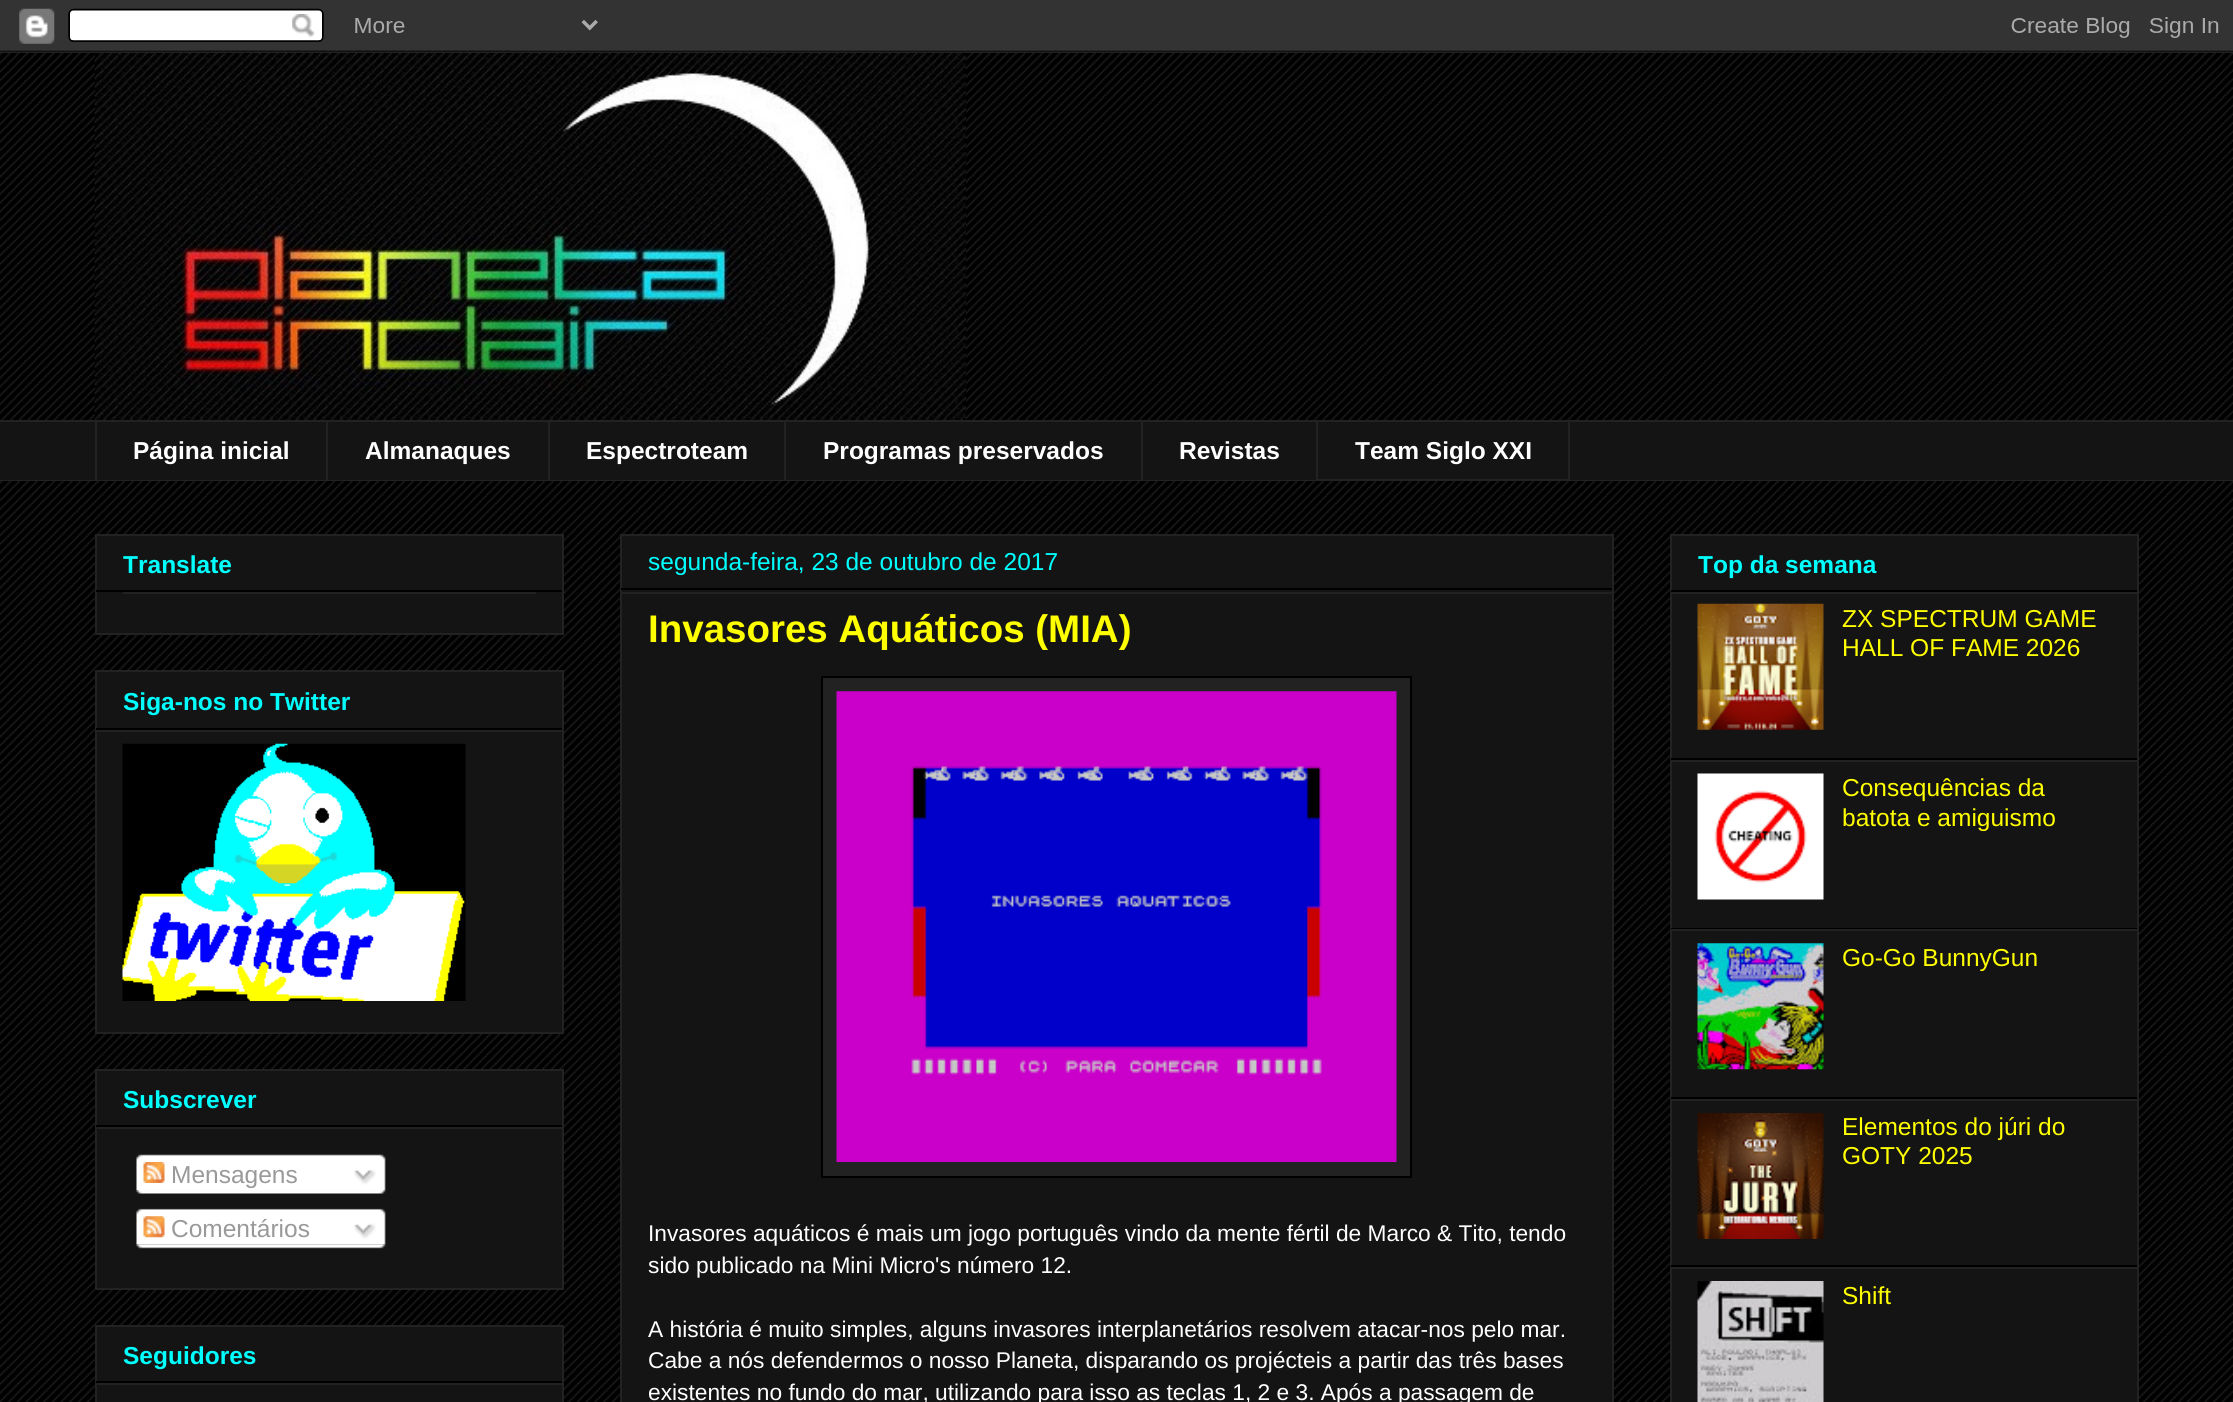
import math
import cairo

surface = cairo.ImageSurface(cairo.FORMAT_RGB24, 2233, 1402)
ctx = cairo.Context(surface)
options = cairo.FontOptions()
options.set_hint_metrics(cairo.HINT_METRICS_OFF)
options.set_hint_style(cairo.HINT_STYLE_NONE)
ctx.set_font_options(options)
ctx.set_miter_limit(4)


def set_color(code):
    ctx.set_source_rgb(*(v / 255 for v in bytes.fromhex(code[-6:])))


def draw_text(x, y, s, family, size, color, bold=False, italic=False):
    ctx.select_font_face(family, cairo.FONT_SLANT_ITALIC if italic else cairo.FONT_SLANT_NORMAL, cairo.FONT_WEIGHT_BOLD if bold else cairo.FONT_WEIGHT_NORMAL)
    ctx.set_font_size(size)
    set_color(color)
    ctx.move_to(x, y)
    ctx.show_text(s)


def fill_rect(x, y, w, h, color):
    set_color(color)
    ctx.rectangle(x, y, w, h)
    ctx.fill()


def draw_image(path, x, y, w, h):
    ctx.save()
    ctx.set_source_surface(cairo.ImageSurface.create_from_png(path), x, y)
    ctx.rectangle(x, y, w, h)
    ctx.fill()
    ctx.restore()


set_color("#000000")
ctx.paint()
draw_image("assets/img1.png", 0, 50, 2233, 1352)
draw_image("assets/img2.png", 0, 0, 2233, 53)
draw_image("assets/img3.png", 94, 53, 872, 367)
fill_rect(0, 422, 2233, 58, "#141414")
fill_rect(0, 420, 2233, 2, "#222222")
fill_rect(95, 420, 2, 61, "#222222")
draw_text(133, 459, "Página inicial", "Liberation Sans", 24.5, "#ffffff", bold=True)
fill_rect(326, 420, 2, 61, "#222222")
draw_text(365, 459, "Almanaques", "Liberation Sans", 24.5, "#ffffff", bold=True)
fill_rect(548, 420, 2, 61, "#222222")
draw_text(586, 459, "Espectroteam", "Liberation Sans", 24.5, "#ffffff", bold=True)
fill_rect(784, 420, 2, 61, "#222222")
draw_text(823, 459, "Programas preservados", "Liberation Sans", 24.5, "#ffffff", bold=True)
fill_rect(1141, 420, 2, 61, "#222222")
draw_text(1179, 459, "Revistas", "Liberation Sans", 24.5, "#ffffff", bold=True)
ctx.rectangle(1317, 421, 252, 59)
set_color("#222222")
ctx.stroke()
draw_text(1355, 459, "Team Siglo XXI", "Liberation Sans", 24.5, "#ffffff", bold=True)
fill_rect(0, 480, 2233, 1, "#222222")
set_color("#141414")
ctx.rectangle(96, 535, 467, 99)
ctx.fill_preserve()
set_color("#222222")
ctx.stroke()
fill_rect(96, 590, 466, 2, "#000000")
draw_text(123, 573, "Translate", "Liberation Sans", 24.5, "#00ffff", bold=True)
fill_rect(123, 592, 413, 2, "#222222")
set_color("#141414")
ctx.rectangle(96, 671, 467, 362)
ctx.fill_preserve()
set_color("#222222")
ctx.stroke()
fill_rect(96, 728, 466, 2, "#000000")
draw_text(123, 710, "Siga-nos no Twitter", "Liberation Sans", 24.5, "#00ffff", bold=True)
fill_rect(96, 730, 466, 2, "#222222")
draw_image("assets/img4.png", 122, 743, 344, 258)
set_color("#141414")
ctx.rectangle(96, 1070, 467, 219)
ctx.fill_preserve()
set_color("#222222")
ctx.stroke()
fill_rect(96, 1125, 466, 2, "#000000")
draw_text(123, 1108, "Subscrever", "Liberation Sans", 24.5, "#00ffff", bold=True)
fill_rect(96, 1127, 466, 2, "#222222")
draw_image("assets/img5.png", 136, 1154, 250, 36)
draw_image("assets/img6.png", 143, 1162, 22, 21)
draw_text(171, 1183, "Mensagens", "Liberation Sans", 24.5, "#999999")
draw_image("assets/img7.png", 353, 1169, 23, 16)
draw_image("assets/img8.png", 136, 1190, 250, 4)
draw_image("assets/img9.png", 136, 1208, 250, 37)
draw_image("assets/img10.png", 143, 1216, 22, 22)
draw_text(171, 1237, "Comentários", "Liberation Sans", 24.5, "#999999")
draw_image("assets/img11.png", 353, 1223, 23, 16)
draw_image("assets/img12.png", 136, 1244, 250, 5)
set_color("#141414")
ctx.rectangle(96, 1326, 467, 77)
ctx.fill_preserve()
set_color("#222222")
ctx.stroke()
fill_rect(96, 1381, 466, 2, "#000000")
draw_text(123, 1364, "Seguidores", "Liberation Sans", 24.5, "#00ffff", bold=True)
fill_rect(96, 1383, 466, 2, "#222222")
set_color("#141414")
ctx.rectangle(621, 535, 992, 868)
ctx.fill_preserve()
set_color("#222222")
ctx.stroke()
fill_rect(621, 588, 991, 2, "#000000")
draw_text(648, 570, "segunda-feira, 23 de outubro de 2017", "Liberation Sans", 24.5, "#00ffff")
fill_rect(621, 592, 991, 2, "#222222")
draw_text(648, 642, "Invasores Aquáticos (MIA)", "Liberation Sans", 38.5, "#ffff00", bold=True)
set_color("#222222")
ctx.rectangle(822, 677, 589, 500)
ctx.fill_preserve()
set_color("#000000")
ctx.stroke()
draw_image("assets/img13.png", 836, 691, 561, 471)
draw_text(648, 1241, "Invasores aquáticos é mais um jogo português vindo da mente fértil de Marco & Tito, tendo", "Liberation Sans", 22.75, "#ffffff")
draw_text(648, 1273, "sido publicado na Mini Micro's número 12.", "Liberation Sans", 22.75, "#ffffff")
draw_text(648, 1337, "A história é muito simples, alguns invasores interplanetários resolvem atacar-nos pelo mar.", "Liberation Sans", 22.75, "#ffffff")
draw_text(648, 1368, "Cabe a nós defendermos o nosso Planeta, disparando os projécteis a partir das três bases", "Liberation Sans", 22.75, "#ffffff")
draw_text(648, 1400, "existentes no fundo do mar, utilizando para isso as teclas 1, 2 e 3. Após a passagem de", "Liberation Sans", 22.75, "#ffffff")
set_color("#141414")
ctx.rectangle(1671, 535, 467, 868)
ctx.fill_preserve()
set_color("#222222")
ctx.stroke()
fill_rect(1671, 590, 466, 2, "#000000")
draw_text(1698, 573, "Top da semana", "Liberation Sans", 24.5, "#00ffff", bold=True)
fill_rect(1671, 592, 466, 2, "#222222")
fill_rect(1671, 758, 466, 2, "#000000")
draw_image("assets/img14.png", 1697, 603, 127, 127)
draw_text(1842, 627, "ZX SPECTRUM GAME", "Liberation Sans", 24.5, "#ffff00")
draw_text(1842, 656, "HALL OF FAME 2026", "Liberation Sans", 24.5, "#ffff00")
fill_rect(1671, 760, 466, 2, "#222222")
fill_rect(1671, 928, 466, 1, "#000000")
draw_image("assets/img15.png", 1697, 773, 127, 127)
draw_text(1842, 796, "Consequências da", "Liberation Sans", 24.5, "#ffff00")
draw_text(1842, 826, "batota e amiguismo", "Liberation Sans", 24.5, "#ffff00")
fill_rect(1671, 929, 466, 2, "#222222")
fill_rect(1671, 1097, 466, 2, "#000000")
draw_image("assets/img16.png", 1697, 943, 127, 127)
draw_text(1842, 966, "Go-Go BunnyGun", "Liberation Sans", 24.5, "#ffff00")
fill_rect(1671, 1099, 466, 2, "#222222")
fill_rect(1671, 1265, 466, 2, "#000000")
draw_image("assets/img17.png", 1697, 1113, 127, 126)
draw_text(1842, 1135, "Elementos do júri do", "Liberation Sans", 24.5, "#ffff00")
draw_text(1842, 1164, "GOTY 2025", "Liberation Sans", 24.5, "#ffff00")
fill_rect(1671, 1267, 466, 2, "#222222")
draw_image("assets/img18.png", 1697, 1281, 127, 121)
draw_text(1842, 1304, "Shift", "Liberation Sans", 24.5, "#ffff00")
surface.write_to_png("output.png")
